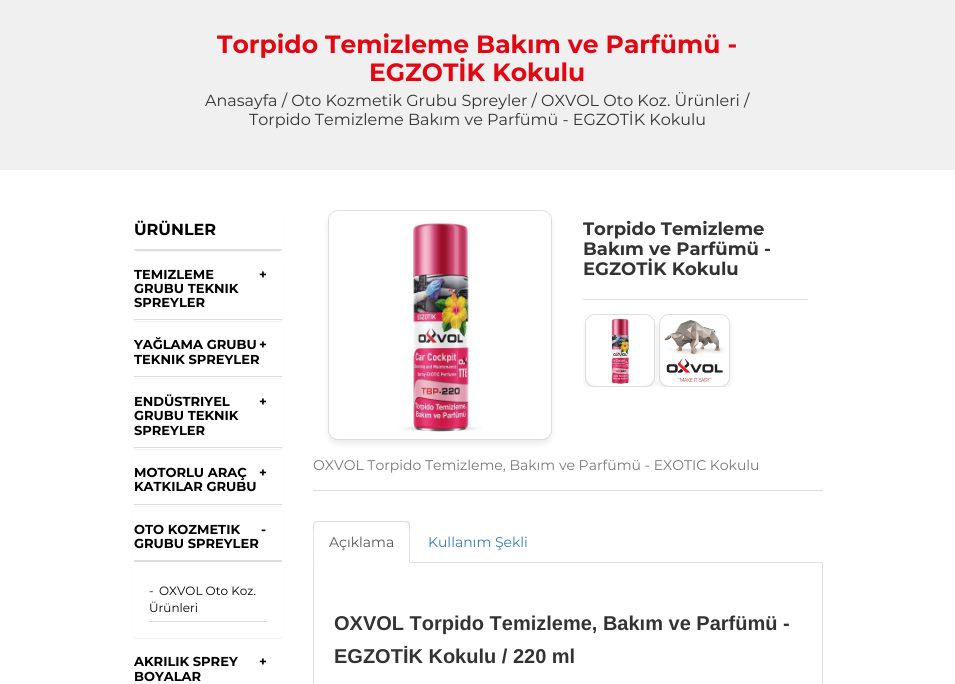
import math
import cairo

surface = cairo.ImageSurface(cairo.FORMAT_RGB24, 955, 684)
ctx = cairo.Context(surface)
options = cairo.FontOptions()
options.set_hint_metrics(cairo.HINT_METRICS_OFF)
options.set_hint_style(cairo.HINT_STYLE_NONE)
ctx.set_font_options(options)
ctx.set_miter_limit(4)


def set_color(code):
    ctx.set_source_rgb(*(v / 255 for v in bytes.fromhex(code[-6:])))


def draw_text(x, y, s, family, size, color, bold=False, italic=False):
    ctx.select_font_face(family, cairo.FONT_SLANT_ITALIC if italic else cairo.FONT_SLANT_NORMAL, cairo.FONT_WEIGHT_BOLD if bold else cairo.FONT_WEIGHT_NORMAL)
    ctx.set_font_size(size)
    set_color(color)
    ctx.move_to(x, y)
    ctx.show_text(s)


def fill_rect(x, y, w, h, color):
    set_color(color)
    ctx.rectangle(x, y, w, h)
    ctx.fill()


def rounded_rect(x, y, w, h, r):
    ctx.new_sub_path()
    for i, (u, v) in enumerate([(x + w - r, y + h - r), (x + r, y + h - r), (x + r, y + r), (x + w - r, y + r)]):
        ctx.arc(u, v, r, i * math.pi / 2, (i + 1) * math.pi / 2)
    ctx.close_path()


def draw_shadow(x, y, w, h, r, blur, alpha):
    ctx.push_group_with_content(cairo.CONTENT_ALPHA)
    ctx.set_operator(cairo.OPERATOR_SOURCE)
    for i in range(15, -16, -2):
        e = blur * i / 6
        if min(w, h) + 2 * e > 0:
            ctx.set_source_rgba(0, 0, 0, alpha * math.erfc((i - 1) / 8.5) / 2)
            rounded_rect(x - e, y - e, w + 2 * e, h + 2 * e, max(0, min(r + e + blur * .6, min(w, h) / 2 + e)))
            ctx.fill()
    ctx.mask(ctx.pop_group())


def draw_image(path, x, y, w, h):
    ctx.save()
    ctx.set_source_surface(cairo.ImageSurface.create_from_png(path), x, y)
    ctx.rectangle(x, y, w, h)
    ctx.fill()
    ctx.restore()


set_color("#ffffff")
ctx.paint()
fill_rect(0, 0, 955, 170, "#f0f0f0")
draw_text(217, 53, "Torpido Temizleme Bakım ve Parfümü -", "Montserrat", 25, "#e30613", bold=True)
draw_text(369, 81, "EGZOTİK Kokulu", "Montserrat", 25, "#e30613", bold=True)
draw_text(205, 106, "Anasayfa / Oto Kozmetik Grubu Spreyler / OXVOL Oto Koz. Ürünleri /", "Montserrat", 16, "#333333")
draw_text(249, 125, "Torpido Temizleme Bakım ve Parfümü - EGZOTİK Kokulu", "Montserrat", 16, "#333333")
set_color("#000000")
draw_shadow(133, 211, 150, 41, 4, 0.5, 0.05)
set_color("#ffffff")
rounded_rect(133, 210, 150, 41, 4)
ctx.fill()
ctx.new_path()
ctx.move_to(281.5, 249.5)
ctx.curve_to(281, 250, 280, 250.5, 279, 250.5)
ctx.line_to(137, 250.5)
ctx.curve_to(136, 250.5, 135, 250, 134.5, 249.5)
set_color("#dddddd")
ctx.set_line_width(1)
ctx.stroke()
fill_rect(134, 249, 148, 1, "#dddddd")
draw_text(134, 235, "ÜRÜNLER", "Montserrat", 16, "#000000", bold=True)
set_color("#000000")
draw_shadow(133, 257, 150, 65, 4, 0.5, 0.05)
set_color("#ffffff")
rounded_rect(133, 256, 150, 65, 4)
ctx.fill()
fill_rect(134, 319, 148, 1, "#dddddd")
draw_text(134, 279, "TEMIZLEME", "Montserrat", 13, "#000000", bold=True)
draw_text(134, 293, "GRUBU TEKNIK", "Montserrat", 13, "#000000", bold=True)
draw_text(134, 307, "SPREYLER", "Montserrat", 13, "#000000", bold=True)
draw_text(259, 279, "+", "Montserrat", 13, "#000000", bold=True)
set_color("#000000")
draw_shadow(133, 327, 150, 52, 4, 0.5, 0.05)
set_color("#ffffff")
rounded_rect(133, 326, 150, 52, 4)
ctx.fill()
fill_rect(134, 376, 148, 1, "#dddddd")
draw_text(134, 349, "YAĞLAMA GRUBU", "Montserrat", 13, "#000000", bold=True)
draw_text(134, 364, "TEKNIK SPREYLER", "Montserrat", 13, "#000000", bold=True)
draw_text(259, 349, "+", "Montserrat", 13, "#000000", bold=True)
set_color("#000000")
draw_shadow(133, 384, 150, 66, 4, 0.5, 0.05)
set_color("#ffffff")
rounded_rect(133, 383, 150, 66, 4)
ctx.fill()
fill_rect(134, 447, 148, 1, "#dddddd")
draw_text(134, 406, "ENDÜSTRIYEL", "Montserrat", 13, "#000000", bold=True)
draw_text(134, 420, "GRUBU TEKNIK", "Montserrat", 13, "#000000", bold=True)
draw_text(134, 435, "SPREYLER", "Montserrat", 13, "#000000", bold=True)
draw_text(259, 406, "+", "Montserrat", 13, "#000000", bold=True)
set_color("#000000")
draw_shadow(133, 455, 150, 52, 4, 0.5, 0.05)
set_color("#ffffff")
rounded_rect(133, 454, 150, 52, 4)
ctx.fill()
fill_rect(134, 504, 148, 1, "#dddddd")
draw_text(134, 477, "MOTORLU ARAÇ", "Montserrat", 13, "#000000", bold=True)
draw_text(134, 491, "KATKILAR GRUBU", "Montserrat", 13, "#000000", bold=True)
draw_text(259, 477, "+", "Montserrat", 13, "#000000", bold=True)
set_color("#000000")
draw_shadow(133, 512, 150, 127, 4, 0.5, 0.05)
set_color("#ffffff")
rounded_rect(133, 511, 150, 127, 4)
ctx.fill()
fill_rect(134, 560, 148, 2, "#dddddd")
draw_text(134, 534, "OTO KOZMETIK", "Montserrat", 13, "#000000", bold=True)
draw_text(134, 548, "GRUBU SPREYLER", "Montserrat", 13, "#000000", bold=True)
draw_text(261, 534, "-", "Montserrat", 13, "#000000", bold=True)
fill_rect(149, 621, 118, 1, "#dddddd")
draw_text(149, 595, "-", "Montserrat", 12, "#171514")
draw_text(159, 595, "OXVOL Oto Koz.", "Montserrat", 12, "#000000")
draw_text(149, 612, "Ürünleri", "Montserrat", 12, "#000000")
draw_text(134, 666, "AKRILIK SPREY", "Montserrat", 13, "#000000", bold=True)
draw_text(134, 681, "BOYALAR", "Montserrat", 13, "#000000", bold=True)
draw_text(259, 666, "+", "Montserrat", 13, "#000000", bold=True)
set_color("#000000")
draw_shadow(328, 214, 224, 230, 10, 3, 0.08)
rounded_rect(328.5, 210.5, 223, 229, 9.5)
set_color("#dddddd")
ctx.stroke()
draw_image("assets/img1.png", 329, 211, 222, 228)
fill_rect(583, 299, 225, 1, "#dddddd")
draw_text(583, 235, "Torpido Temizleme", "Montserrat", 18, "#333333", bold=True)
draw_text(583, 255, "Bakım ve Parfümü -", "Montserrat", 18, "#333333", bold=True)
draw_text(583, 275, "EGZOTİK Kokulu", "Montserrat", 18, "#333333", bold=True)
ctx.save()
ctx.rectangle(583, 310, 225, 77)
ctx.clip()
set_color("#000000")
draw_shadow(585, 318, 70, 73, 10, 3, 0.08)
ctx.restore()
rounded_rect(585.5, 314.5, 69, 72, 9.5)
set_color("#dddddd")
ctx.stroke()
draw_image("assets/img2.png", 586, 315, 68, 71)
ctx.save()
ctx.rectangle(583, 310, 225, 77)
ctx.clip()
set_color("#000000")
draw_shadow(659, 318, 71, 73, 10, 3, 0.08)
ctx.restore()
rounded_rect(659.5, 314.5, 70, 72, 9.5)
ctx.stroke()
draw_image("assets/img3.png", 660, 315, 69, 71)
fill_rect(313, 490, 510, 1, "#dddddd")
draw_text(313, 470, "OXVOL Torpido Temizleme, Bakım ve Parfümü - EXOTIC Kokulu", "Montserrat", 14, "#7a7675")
ctx.rectangle(313.5, 562.5, 509, 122)
set_color("#dddddd")
ctx.stroke()
set_color("#ffffff")
ctx.new_path()
ctx.move_to(317, 521)
ctx.line_to(406, 521)
ctx.curve_to(408, 521, 410, 523, 410, 525)
ctx.line_to(410, 563)
ctx.line_to(313, 563)
ctx.line_to(313, 525)
ctx.curve_to(313, 523, 315, 521, 317, 521)
ctx.close_path()
ctx.fill()
set_color("#dddddd")
ctx.new_path()
ctx.move_to(317, 521)
ctx.line_to(314, 522)
ctx.line_to(315, 523)
ctx.line_to(317, 522)
ctx.line_to(406, 522)
ctx.line_to(408, 523)
ctx.line_to(409, 522)
ctx.line_to(406, 521)
ctx.close_path()
ctx.fill()
ctx.new_path()
ctx.move_to(410, 563)
ctx.line_to(410, 525)
ctx.curve_to(410, 524, 410, 523, 409, 522)
ctx.line_to(408, 523)
ctx.curve_to(410, 525, 409, 557, 409, 562)
ctx.close_path()
ctx.fill()
ctx.new_path()
ctx.move_to(313, 563)
ctx.line_to(314, 562)
ctx.curve_to(314, 557, 313, 525, 315, 523)
ctx.line_to(314, 522)
ctx.line_to(313, 525)
ctx.close_path()
ctx.fill()
draw_text(329, 547, "Açıklama", "Montserrat", 14, "#555555")
draw_text(428, 547, "Kullanım Şekli", "Montserrat", 14, "#337ab7")
draw_text(334, 630, "OXVOL Torpido Temizleme, Bakım ve Parfümü -", "Liberation Sans", 20, "#333333", bold=True)
draw_text(334, 663, "EGZOTİK Kokulu / 220 ml", "Liberation Sans", 20, "#333333", bold=True)
surface.write_to_png("output.png")
